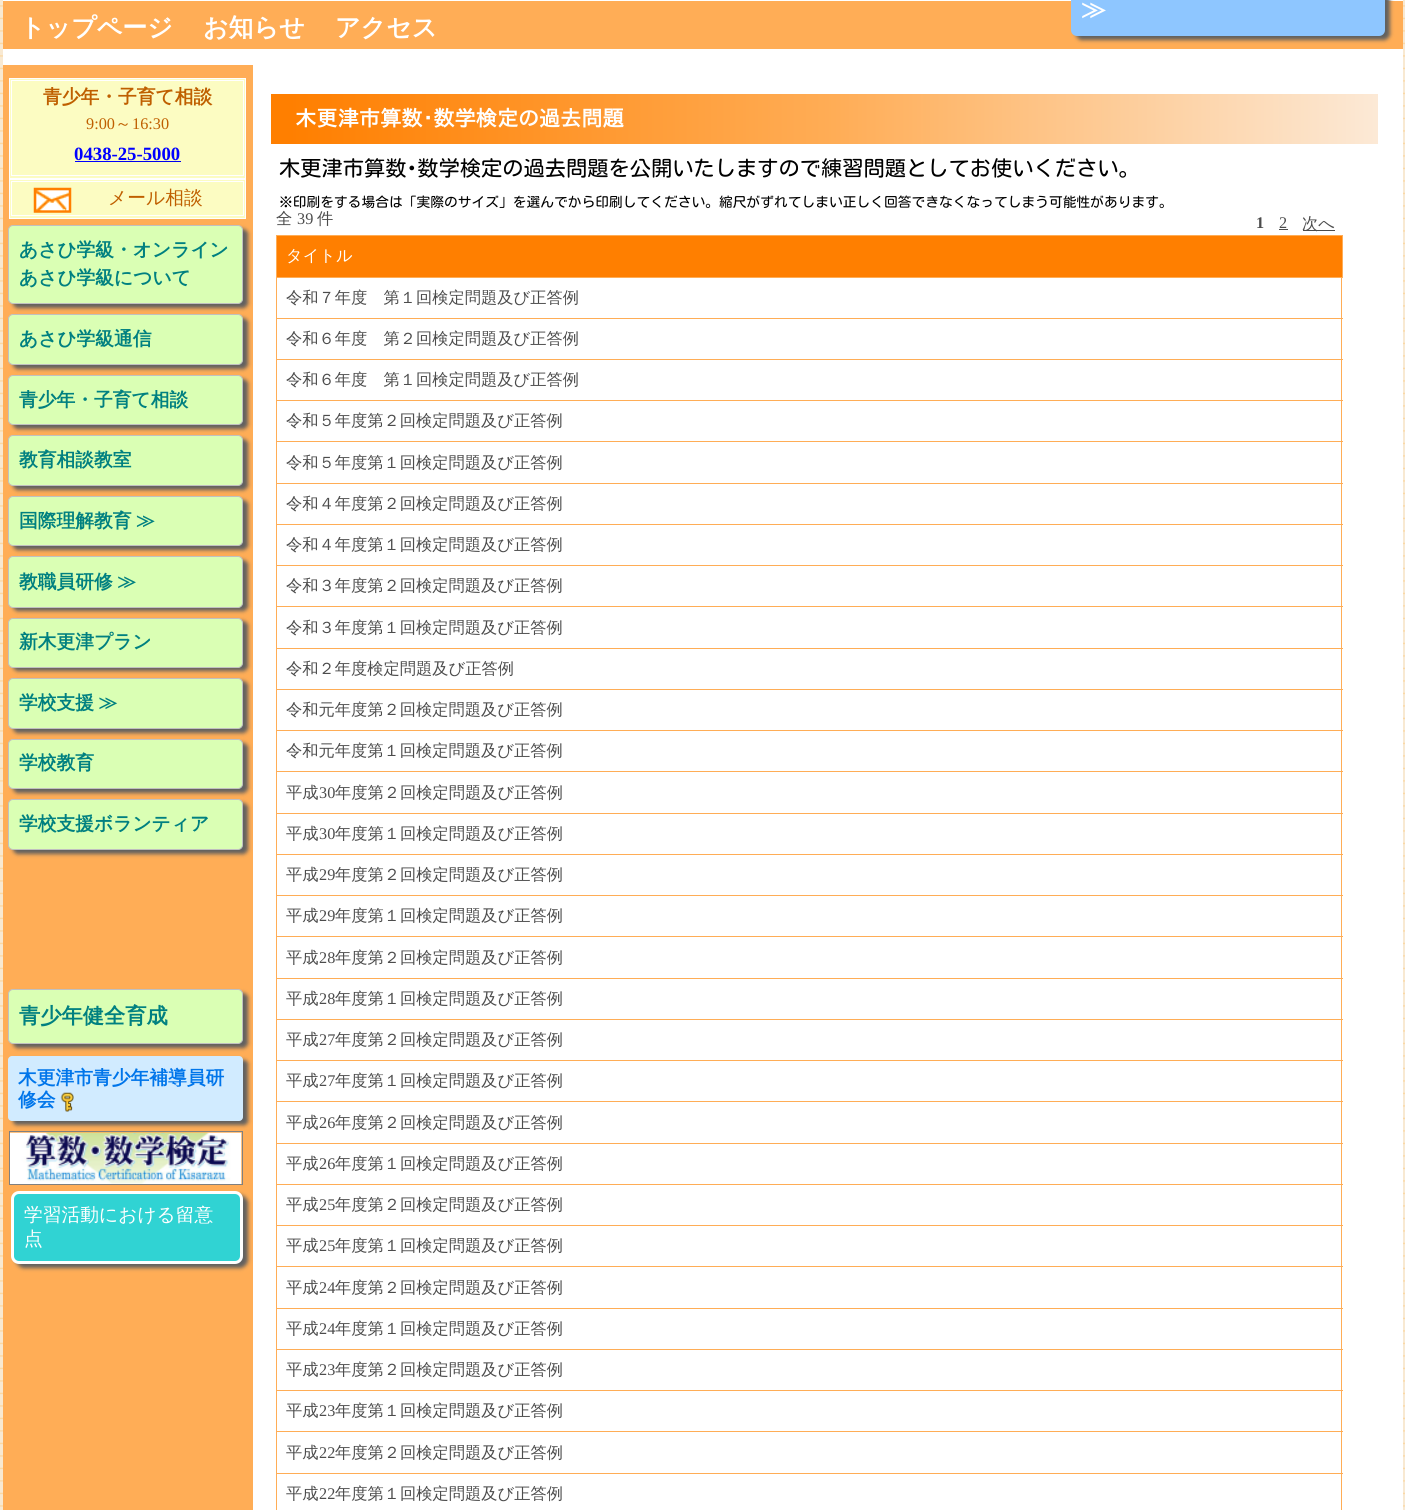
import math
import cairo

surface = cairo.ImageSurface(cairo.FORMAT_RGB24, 1405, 1510)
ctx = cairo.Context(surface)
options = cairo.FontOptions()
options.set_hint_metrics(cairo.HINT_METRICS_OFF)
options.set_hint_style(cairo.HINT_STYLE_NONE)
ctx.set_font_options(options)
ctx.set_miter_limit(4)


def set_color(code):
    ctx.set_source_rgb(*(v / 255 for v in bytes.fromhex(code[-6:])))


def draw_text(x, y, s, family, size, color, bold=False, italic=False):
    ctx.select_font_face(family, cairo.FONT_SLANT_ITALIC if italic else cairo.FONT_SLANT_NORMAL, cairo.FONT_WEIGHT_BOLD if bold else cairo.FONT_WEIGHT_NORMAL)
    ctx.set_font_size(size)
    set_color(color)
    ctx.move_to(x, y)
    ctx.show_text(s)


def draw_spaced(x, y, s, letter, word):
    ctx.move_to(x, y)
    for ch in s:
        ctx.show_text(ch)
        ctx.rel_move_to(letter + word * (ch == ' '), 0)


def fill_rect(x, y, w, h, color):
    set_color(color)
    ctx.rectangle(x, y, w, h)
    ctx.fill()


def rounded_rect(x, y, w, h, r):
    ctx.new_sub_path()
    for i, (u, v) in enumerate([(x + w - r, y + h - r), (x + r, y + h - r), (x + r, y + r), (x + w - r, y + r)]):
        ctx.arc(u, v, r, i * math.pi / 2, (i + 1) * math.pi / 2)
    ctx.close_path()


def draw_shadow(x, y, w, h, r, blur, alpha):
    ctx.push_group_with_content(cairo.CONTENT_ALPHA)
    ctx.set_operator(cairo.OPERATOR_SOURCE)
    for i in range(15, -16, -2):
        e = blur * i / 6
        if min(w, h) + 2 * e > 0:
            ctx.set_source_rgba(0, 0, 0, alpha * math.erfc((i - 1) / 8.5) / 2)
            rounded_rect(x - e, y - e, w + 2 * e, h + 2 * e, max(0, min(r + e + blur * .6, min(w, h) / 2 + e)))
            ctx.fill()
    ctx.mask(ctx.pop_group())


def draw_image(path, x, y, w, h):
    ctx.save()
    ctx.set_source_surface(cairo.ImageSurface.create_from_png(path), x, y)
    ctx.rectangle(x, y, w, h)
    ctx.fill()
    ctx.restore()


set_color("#ffffff")
ctx.paint()
draw_image("assets/img1.png", 0, 0, 1405, 1510)
fill_rect(3, 0, 1400, 53, "#ffffff")
fill_rect(3, 1, 1400, 48, "#ffad56")
set_color("#606060")
draw_shadow(1076, -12, 314, 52, 6, 2, 1)
set_color("#8ec6ff")
rounded_rect(1071, -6, 314, 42, 6)
ctx.fill()
draw_text(1081, 18, "≫", "WenQuanYi Zen Hei", 25, "#ffffff", bold=True)
draw_text(20, 36, "トップページ", "WenQuanYi Zen Hei", 25, "#ffffff", bold=True)
draw_text(203, 36, "お知らせ", "WenQuanYi Zen Hei", 25, "#ffffff", bold=True)
draw_text(335, 36, "アクセス", "WenQuanYi Zen Hei", 25, "#ffffff", bold=True)
fill_rect(3, 65, 250, 1445, "#ffad56")
fill_rect(3, 53, 250, 12, "#ffffff")
set_color("#fcfcc2")
ctx.rectangle(9.5, 78.5, 236, 100)
ctx.fill_preserve()
set_color("#ffffff")
ctx.set_line_width(1)
ctx.stroke()
ctx.rectangle(11.5, 80.5, 232, 95)
ctx.stroke()
draw_text(43, 103, "青少年・子育て相談", "WenQuanYi Zen Hei", 18.75, "#bf5f00", bold=True)
draw_text(86, 129, "9:00", "Liberation Serif", 16.25, "#bf5f00")
draw_text(115, 129, "～", "WenQuanYi Zen Hei Medium", 16.25, "#bf5f00")
draw_text(132, 129, "16:30", "Liberation Serif", 16.25, "#bf5f00")
draw_text(74, 160, "0438-25-5000", "Liberation Serif", 18.75, "#0000ff", bold=True)
fill_rect(75, 161, 44, 1, "#0000ff")
fill_rect(119, 161, 62, 1, "#0000ee")
set_color("#fcfcc2")
ctx.rectangle(9.5, 179.5, 236, 39)
ctx.fill_preserve()
set_color("#ffffff")
ctx.stroke()
ctx.rectangle(11.5, 181.5, 232, 34)
ctx.stroke()
draw_image("assets/img2.png", 33, 187, 39, 26)
draw_text(108, 204, "メール相談", "WenQuanYi Zen Hei Medium", 18.75, "#bf5f00")
set_color("#606060")
draw_shadow(13, 229, 235, 79, 5, 2, 1)
set_color("#daffb4")
rounded_rect(8.5, 225.5, 234, 78, 4.5)
ctx.fill_preserve()
set_color("#c0c0c0")
ctx.stroke()
draw_text(19, 256, "あさひ学級・オンライン", "WenQuanYi Zen Hei", 18.75, "#008080", bold=True)
draw_text(19, 284, "あさひ学級について", "WenQuanYi Zen Hei", 18.75, "#008080", bold=True)
set_color("#606060")
draw_shadow(13, 318, 235, 51, 5, 2, 1)
set_color("#daffb4")
rounded_rect(8.5, 314.5, 234, 50, 4.5)
ctx.fill_preserve()
set_color("#c0c0c0")
ctx.stroke()
draw_text(19, 345, "あさひ学級通信", "WenQuanYi Zen Hei", 18.75, "#008080", bold=True)
set_color("#606060")
draw_shadow(13, 379, 235, 50, 5, 2, 1)
set_color("#daffb4")
rounded_rect(8.5, 375.5, 234, 49, 4.5)
ctx.fill_preserve()
set_color("#c0c0c0")
ctx.stroke()
draw_text(19, 406, "青少年・子育て相談", "WenQuanYi Zen Hei", 18.75, "#008080", bold=True)
set_color("#606060")
draw_shadow(13, 439, 235, 51, 5, 2, 1)
set_color("#daffb4")
rounded_rect(8.5, 435.5, 234, 50, 4.5)
ctx.fill_preserve()
set_color("#c0c0c0")
ctx.stroke()
draw_text(19, 466, "教育相談教室", "WenQuanYi Zen Hei", 18.75, "#008080", bold=True)
set_color("#606060")
draw_shadow(13, 500, 235, 50, 5, 2, 1)
set_color("#daffb4")
rounded_rect(8.5, 496.5, 234, 49, 4.5)
ctx.fill_preserve()
set_color("#c0c0c0")
ctx.stroke()
set_color("#008080")
draw_spaced(19, 527, "国際理解教育 ≫", 0, -1)
set_color("#606060")
draw_shadow(13, 560, 235, 51, 5, 2, 1)
set_color("#daffb4")
rounded_rect(8.5, 556.5, 234, 51, 4.5)
ctx.fill_preserve()
set_color("#c0c0c0")
ctx.stroke()
set_color("#008080")
draw_spaced(19, 588, "教職員研修 ≫", 0, -1)
set_color("#606060")
draw_shadow(13, 621, 235, 50, 5, 2, 1)
set_color("#daffb4")
rounded_rect(8.5, 618.5, 234, 49, 4.5)
ctx.fill_preserve()
set_color("#c0c0c0")
ctx.stroke()
draw_text(19, 648, "新木更津プラン", "WenQuanYi Zen Hei", 18.75, "#008080", bold=True)
set_color("#606060")
draw_shadow(13, 681, 235, 52, 5, 2, 1)
set_color("#daffb4")
rounded_rect(8.5, 678.5, 234, 50, 4.5)
ctx.fill_preserve()
set_color("#c0c0c0")
ctx.stroke()
set_color("#008080")
draw_spaced(19, 709, "学校支援 ≫", 0, -1)
set_color("#606060")
draw_shadow(13, 743, 235, 50, 5, 2, 1)
set_color("#daffb4")
rounded_rect(8.5, 739.5, 234, 49, 4.5)
ctx.fill_preserve()
set_color("#c0c0c0")
ctx.stroke()
draw_text(19, 769, "学校教育", "WenQuanYi Zen Hei", 18.75, "#008080", bold=True)
set_color("#606060")
draw_shadow(13, 803, 235, 51, 5, 2, 1)
set_color("#daffb4")
rounded_rect(8.5, 799.5, 234, 50, 4.5)
ctx.fill_preserve()
set_color("#c0c0c0")
ctx.stroke()
draw_text(19, 830, "学校支援ボランティア", "WenQuanYi Zen Hei", 18.75, "#008080", bold=True)
set_color("#606060")
draw_shadow(13, 993, 235, 55, 5, 2, 1)
set_color("#daffb4")
rounded_rect(8.5, 989.5, 234, 54, 4.5)
ctx.fill_preserve()
set_color("#c0c0c0")
ctx.stroke()
draw_text(19, 1023, "青少年健全育成", "WenQuanYi Zen Hei", 21.25, "#008080", bold=True)
set_color("#606060")
draw_shadow(13, 1060, 235, 65, 4, 2, 1)
set_color("#d1ebff")
rounded_rect(8, 1056, 235, 65, 4)
ctx.fill()
draw_text(18, 1084, "木更津市青少年補導員研", "WenQuanYi Zen Hei", 18.75, "#0075ea", bold=True)
draw_text(18, 1106, "修会", "WenQuanYi Zen Hei", 18.75, "#0075ea", bold=True)
draw_image("assets/img3.png", 60, 1092, 14, 20)
ctx.rectangle(9.5, 1131.5, 233, 53)
set_color("#808080")
ctx.stroke()
draw_image("assets/img4.png", 10, 1132, 232, 52)
set_color("#606060")
draw_shadow(16, 1195, 232, 73, 8, 2, 1)
set_color("#30d3d3")
rounded_rect(12.5, 1192.5, 229, 70, 6.5)
ctx.fill_preserve()
set_color("#ffffff")
ctx.set_line_width(3)
ctx.stroke()
draw_text(24, 1221, "学習活動における留意", "WenQuanYi Zen Hei Medium", 18.75, "#ffffff")
draw_text(24, 1245, "点", "WenQuanYi Zen Hei Medium", 18.75, "#ffffff")
fill_rect(253, 53, 1150, 1457, "#ffffff")
gradient = cairo.LinearGradient(290, 119, 1378, 119)
gradient.add_color_stop_rgba(0, 1, 0.498, 0, 1)
gradient.add_color_stop_rgba(0.5, 1, 0.678, 0.337, 1)
gradient.add_color_stop_rgba(1, 0.988, 0.914, 0.839, 1)
ctx.set_source(gradient)
ctx.rectangle(290, 94, 1088, 50)
ctx.fill()
fill_rect(271, 94, 19, 50, "#ff7f00")
draw_text(295, 126, "木更津市算数･数学検定の過去問題", "IPAPGothic", 21.25, "#ffffff", bold=True)
draw_text(279, 176, "木更津市算数･数学検定の過去問題を公開いたしますので練習問題としてお使いください。", "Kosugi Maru", 21.25, "#000000")
draw_text(279, 207, "※印刷をする場合は「実際のサイズ」を選んでから印刷してください。縮尺がずれてしまい正しく回答できなくなってしまう可能性があります。", "Kosugi Maru", 13.75, "#000000")
draw_text(276, 224, "全", "WenQuanYi Zen Hei Medium", 16.25, "#4c4c4c")
draw_text(297, 224, "39", "Liberation Serif", 16.25, "#4c4c4c")
draw_text(317, 224, "件", "WenQuanYi Zen Hei Medium", 16.25, "#4c4c4c")
draw_text(1256, 228, "1", "Liberation Serif", 16.25, "#4c4c4c", bold=True)
draw_text(1279, 228, "2", "Liberation Serif", 16.25, "#4c4c4c")
fill_rect(1279, 229, 9, 1, "#4c4c4c")
fill_rect(1303, 230, 32, 1, "#4c4c4c")
draw_text(1302, 229, "次へ", "WenQuanYi Zen Hei Medium", 16.25, "#4c4c4c")
set_color("#ff7f00")
ctx.rectangle(276.5, 235.5, 1066, 42)
ctx.fill_preserve()
set_color("#ffad56")
ctx.set_line_width(1)
ctx.stroke()
draw_text(286, 261, "タイトル", "WenQuanYi Zen Hei Medium", 16.25, "#ffffff")
fill_rect(1341, 278, 1, 1232, "#ffad56")
fill_rect(276, 318, 1067, 1, "#ffad56")
fill_rect(276, 278, 1, 41, "#ffad56")
draw_text(286, 303, "令和７年度　第１回検定問題及び正答例", "WenQuanYi Zen Hei Medium", 16.25, "#4c4c4c")
fill_rect(276, 359, 1067, 1, "#ffad56")
fill_rect(276, 319, 1, 41, "#ffad56")
draw_text(286, 344, "令和６年度　第２回検定問題及び正答例", "WenQuanYi Zen Hei Medium", 16.25, "#4c4c4c")
fill_rect(276, 400, 1067, 1, "#ffad56")
fill_rect(276, 360, 1, 41, "#ffad56")
draw_text(286, 385, "令和６年度　第１回検定問題及び正答例", "WenQuanYi Zen Hei Medium", 16.25, "#4c4c4c")
fill_rect(276, 441, 1067, 1, "#ffad56")
fill_rect(276, 401, 1, 42, "#ffad56")
draw_text(286, 426, "令和５年度第２回検定問題及び正答例", "WenQuanYi Zen Hei Medium", 16.25, "#4c4c4c")
fill_rect(276, 483, 1067, 1, "#ffad56")
fill_rect(276, 443, 1, 41, "#ffad56")
draw_text(286, 468, "令和５年度第１回検定問題及び正答例", "WenQuanYi Zen Hei Medium", 16.25, "#4c4c4c")
fill_rect(276, 524, 1067, 1, "#ffad56")
fill_rect(276, 484, 1, 41, "#ffad56")
draw_text(286, 509, "令和４年度第２回検定問題及び正答例", "WenQuanYi Zen Hei Medium", 16.25, "#4c4c4c")
fill_rect(276, 565, 1067, 1, "#ffad56")
fill_rect(276, 525, 1, 41, "#ffad56")
draw_text(286, 550, "令和４年度第１回検定問題及び正答例", "WenQuanYi Zen Hei Medium", 16.25, "#4c4c4c")
fill_rect(276, 606, 1067, 1, "#ffad56")
fill_rect(276, 566, 1, 42, "#ffad56")
draw_text(286, 591, "令和３年度第２回検定問題及び正答例", "WenQuanYi Zen Hei Medium", 16.25, "#4c4c4c")
fill_rect(276, 648, 1067, 1, "#ffad56")
fill_rect(276, 608, 1, 41, "#ffad56")
draw_text(286, 633, "令和３年度第１回検定問題及び正答例", "WenQuanYi Zen Hei Medium", 16.25, "#4c4c4c")
fill_rect(276, 689, 1067, 1, "#ffad56")
fill_rect(276, 649, 1, 41, "#ffad56")
draw_text(286, 674, "令和２年度検定問題及び正答例", "WenQuanYi Zen Hei Medium", 16.25, "#4c4c4c")
fill_rect(276, 730, 1067, 1, "#ffad56")
fill_rect(276, 690, 1, 41, "#ffad56")
draw_text(286, 715, "令和元年度第２回検定問題及び正答例", "WenQuanYi Zen Hei Medium", 16.25, "#4c4c4c")
fill_rect(276, 771, 1067, 1, "#ffad56")
fill_rect(276, 731, 1, 42, "#ffad56")
draw_text(286, 756, "令和元年度第１回検定問題及び正答例", "WenQuanYi Zen Hei Medium", 16.25, "#4c4c4c")
fill_rect(276, 813, 1067, 1, "#ffad56")
fill_rect(276, 773, 1, 41, "#ffad56")
draw_text(286, 798, "平成", "WenQuanYi Zen Hei Medium", 16.25, "#4c4c4c")
draw_text(319, 798, "30", "Liberation Serif", 16.25, "#4c4c4c")
draw_text(335, 798, "年度第２回検定問題及び正答例", "WenQuanYi Zen Hei Medium", 16.25, "#4c4c4c")
fill_rect(276, 854, 1067, 1, "#ffad56")
fill_rect(276, 814, 1, 41, "#ffad56")
draw_text(286, 839, "平成", "WenQuanYi Zen Hei Medium", 16.25, "#4c4c4c")
draw_text(319, 839, "30", "Liberation Serif", 16.25, "#4c4c4c")
draw_text(335, 839, "年度第１回検定問題及び正答例", "WenQuanYi Zen Hei Medium", 16.25, "#4c4c4c")
fill_rect(276, 895, 1067, 1, "#ffad56")
fill_rect(276, 855, 1, 41, "#ffad56")
draw_text(286, 880, "平成", "WenQuanYi Zen Hei Medium", 16.25, "#4c4c4c")
draw_text(319, 880, "29", "Liberation Serif", 16.25, "#4c4c4c")
draw_text(335, 880, "年度第２回検定問題及び正答例", "WenQuanYi Zen Hei Medium", 16.25, "#4c4c4c")
fill_rect(276, 936, 1067, 1, "#ffad56")
fill_rect(276, 896, 1, 42, "#ffad56")
draw_text(286, 921, "平成", "WenQuanYi Zen Hei Medium", 16.25, "#4c4c4c")
draw_text(319, 921, "29", "Liberation Serif", 16.25, "#4c4c4c")
draw_text(335, 921, "年度第１回検定問題及び正答例", "WenQuanYi Zen Hei Medium", 16.25, "#4c4c4c")
fill_rect(276, 978, 1067, 1, "#ffad56")
fill_rect(276, 938, 1, 41, "#ffad56")
draw_text(286, 963, "平成", "WenQuanYi Zen Hei Medium", 16.25, "#4c4c4c")
draw_text(319, 963, "28", "Liberation Serif", 16.25, "#4c4c4c")
draw_text(335, 963, "年度第２回検定問題及び正答例", "WenQuanYi Zen Hei Medium", 16.25, "#4c4c4c")
fill_rect(276, 1019, 1067, 1, "#ffad56")
fill_rect(276, 979, 1, 41, "#ffad56")
draw_text(286, 1004, "平成", "WenQuanYi Zen Hei Medium", 16.25, "#4c4c4c")
draw_text(319, 1004, "28", "Liberation Serif", 16.25, "#4c4c4c")
draw_text(335, 1004, "年度第１回検定問題及び正答例", "WenQuanYi Zen Hei Medium", 16.25, "#4c4c4c")
fill_rect(276, 1060, 1067, 1, "#ffad56")
fill_rect(276, 1020, 1, 41, "#ffad56")
draw_text(286, 1045, "平成", "WenQuanYi Zen Hei Medium", 16.25, "#4c4c4c")
draw_text(319, 1045, "27", "Liberation Serif", 16.25, "#4c4c4c")
draw_text(335, 1045, "年度第２回検定問題及び正答例", "WenQuanYi Zen Hei Medium", 16.25, "#4c4c4c")
fill_rect(276, 1101, 1067, 1, "#ffad56")
fill_rect(276, 1061, 1, 42, "#ffad56")
draw_text(286, 1086, "平成", "WenQuanYi Zen Hei Medium", 16.25, "#4c4c4c")
draw_text(319, 1086, "27", "Liberation Serif", 16.25, "#4c4c4c")
draw_text(335, 1086, "年度第１回検定問題及び正答例", "WenQuanYi Zen Hei Medium", 16.25, "#4c4c4c")
fill_rect(276, 1143, 1067, 1, "#ffad56")
fill_rect(276, 1103, 1, 41, "#ffad56")
draw_text(286, 1128, "平成", "WenQuanYi Zen Hei Medium", 16.25, "#4c4c4c")
draw_text(319, 1128, "26", "Liberation Serif", 16.25, "#4c4c4c")
draw_text(335, 1128, "年度第２回検定問題及び正答例", "WenQuanYi Zen Hei Medium", 16.25, "#4c4c4c")
fill_rect(276, 1184, 1067, 1, "#ffad56")
fill_rect(276, 1144, 1, 41, "#ffad56")
draw_text(286, 1169, "平成", "WenQuanYi Zen Hei Medium", 16.25, "#4c4c4c")
draw_text(319, 1169, "26", "Liberation Serif", 16.25, "#4c4c4c")
draw_text(335, 1169, "年度第１回検定問題及び正答例", "WenQuanYi Zen Hei Medium", 16.25, "#4c4c4c")
fill_rect(276, 1225, 1067, 1, "#ffad56")
fill_rect(276, 1185, 1, 41, "#ffad56")
draw_text(286, 1210, "平成", "WenQuanYi Zen Hei Medium", 16.25, "#4c4c4c")
draw_text(319, 1210, "25", "Liberation Serif", 16.25, "#4c4c4c")
draw_text(335, 1210, "年度第２回検定問題及び正答例", "WenQuanYi Zen Hei Medium", 16.25, "#4c4c4c")
fill_rect(276, 1266, 1067, 1, "#ffad56")
fill_rect(276, 1226, 1, 42, "#ffad56")
draw_text(286, 1251, "平成", "WenQuanYi Zen Hei Medium", 16.25, "#4c4c4c")
draw_text(319, 1251, "25", "Liberation Serif", 16.25, "#4c4c4c")
draw_text(335, 1251, "年度第１回検定問題及び正答例", "WenQuanYi Zen Hei Medium", 16.25, "#4c4c4c")
fill_rect(276, 1308, 1067, 1, "#ffad56")
fill_rect(276, 1268, 1, 41, "#ffad56")
draw_text(286, 1293, "平成", "WenQuanYi Zen Hei Medium", 16.25, "#4c4c4c")
draw_text(319, 1293, "24", "Liberation Serif", 16.25, "#4c4c4c")
draw_text(335, 1293, "年度第２回検定問題及び正答例", "WenQuanYi Zen Hei Medium", 16.25, "#4c4c4c")
fill_rect(276, 1349, 1067, 1, "#ffad56")
fill_rect(276, 1309, 1, 41, "#ffad56")
draw_text(286, 1334, "平成", "WenQuanYi Zen Hei Medium", 16.25, "#4c4c4c")
draw_text(319, 1334, "24", "Liberation Serif", 16.25, "#4c4c4c")
draw_text(335, 1334, "年度第１回検定問題及び正答例", "WenQuanYi Zen Hei Medium", 16.25, "#4c4c4c")
fill_rect(276, 1390, 1067, 1, "#ffad56")
fill_rect(276, 1350, 1, 41, "#ffad56")
draw_text(286, 1375, "平成", "WenQuanYi Zen Hei Medium", 16.25, "#4c4c4c")
draw_text(319, 1375, "23", "Liberation Serif", 16.25, "#4c4c4c")
draw_text(335, 1375, "年度第２回検定問題及び正答例", "WenQuanYi Zen Hei Medium", 16.25, "#4c4c4c")
fill_rect(276, 1431, 1067, 1, "#ffad56")
fill_rect(276, 1391, 1, 42, "#ffad56")
draw_text(286, 1416, "平成", "WenQuanYi Zen Hei Medium", 16.25, "#4c4c4c")
draw_text(319, 1416, "23", "Liberation Serif", 16.25, "#4c4c4c")
draw_text(335, 1416, "年度第１回検定問題及び正答例", "WenQuanYi Zen Hei Medium", 16.25, "#4c4c4c")
fill_rect(276, 1473, 1067, 1, "#ffad56")
fill_rect(276, 1433, 1, 77, "#ffad56")
draw_text(286, 1458, "平成", "WenQuanYi Zen Hei Medium", 16.25, "#4c4c4c")
draw_text(319, 1458, "22", "Liberation Serif", 16.25, "#4c4c4c")
draw_text(335, 1458, "年度第２回検定問題及び正答例", "WenQuanYi Zen Hei Medium", 16.25, "#4c4c4c")
draw_text(286, 1499, "平成", "WenQuanYi Zen Hei Medium", 16.25, "#4c4c4c")
draw_text(319, 1499, "22", "Liberation Serif", 16.25, "#4c4c4c")
draw_text(335, 1499, "年度第１回検定問題及び正答例", "WenQuanYi Zen Hei Medium", 16.25, "#4c4c4c")
surface.write_to_png("output.png")
